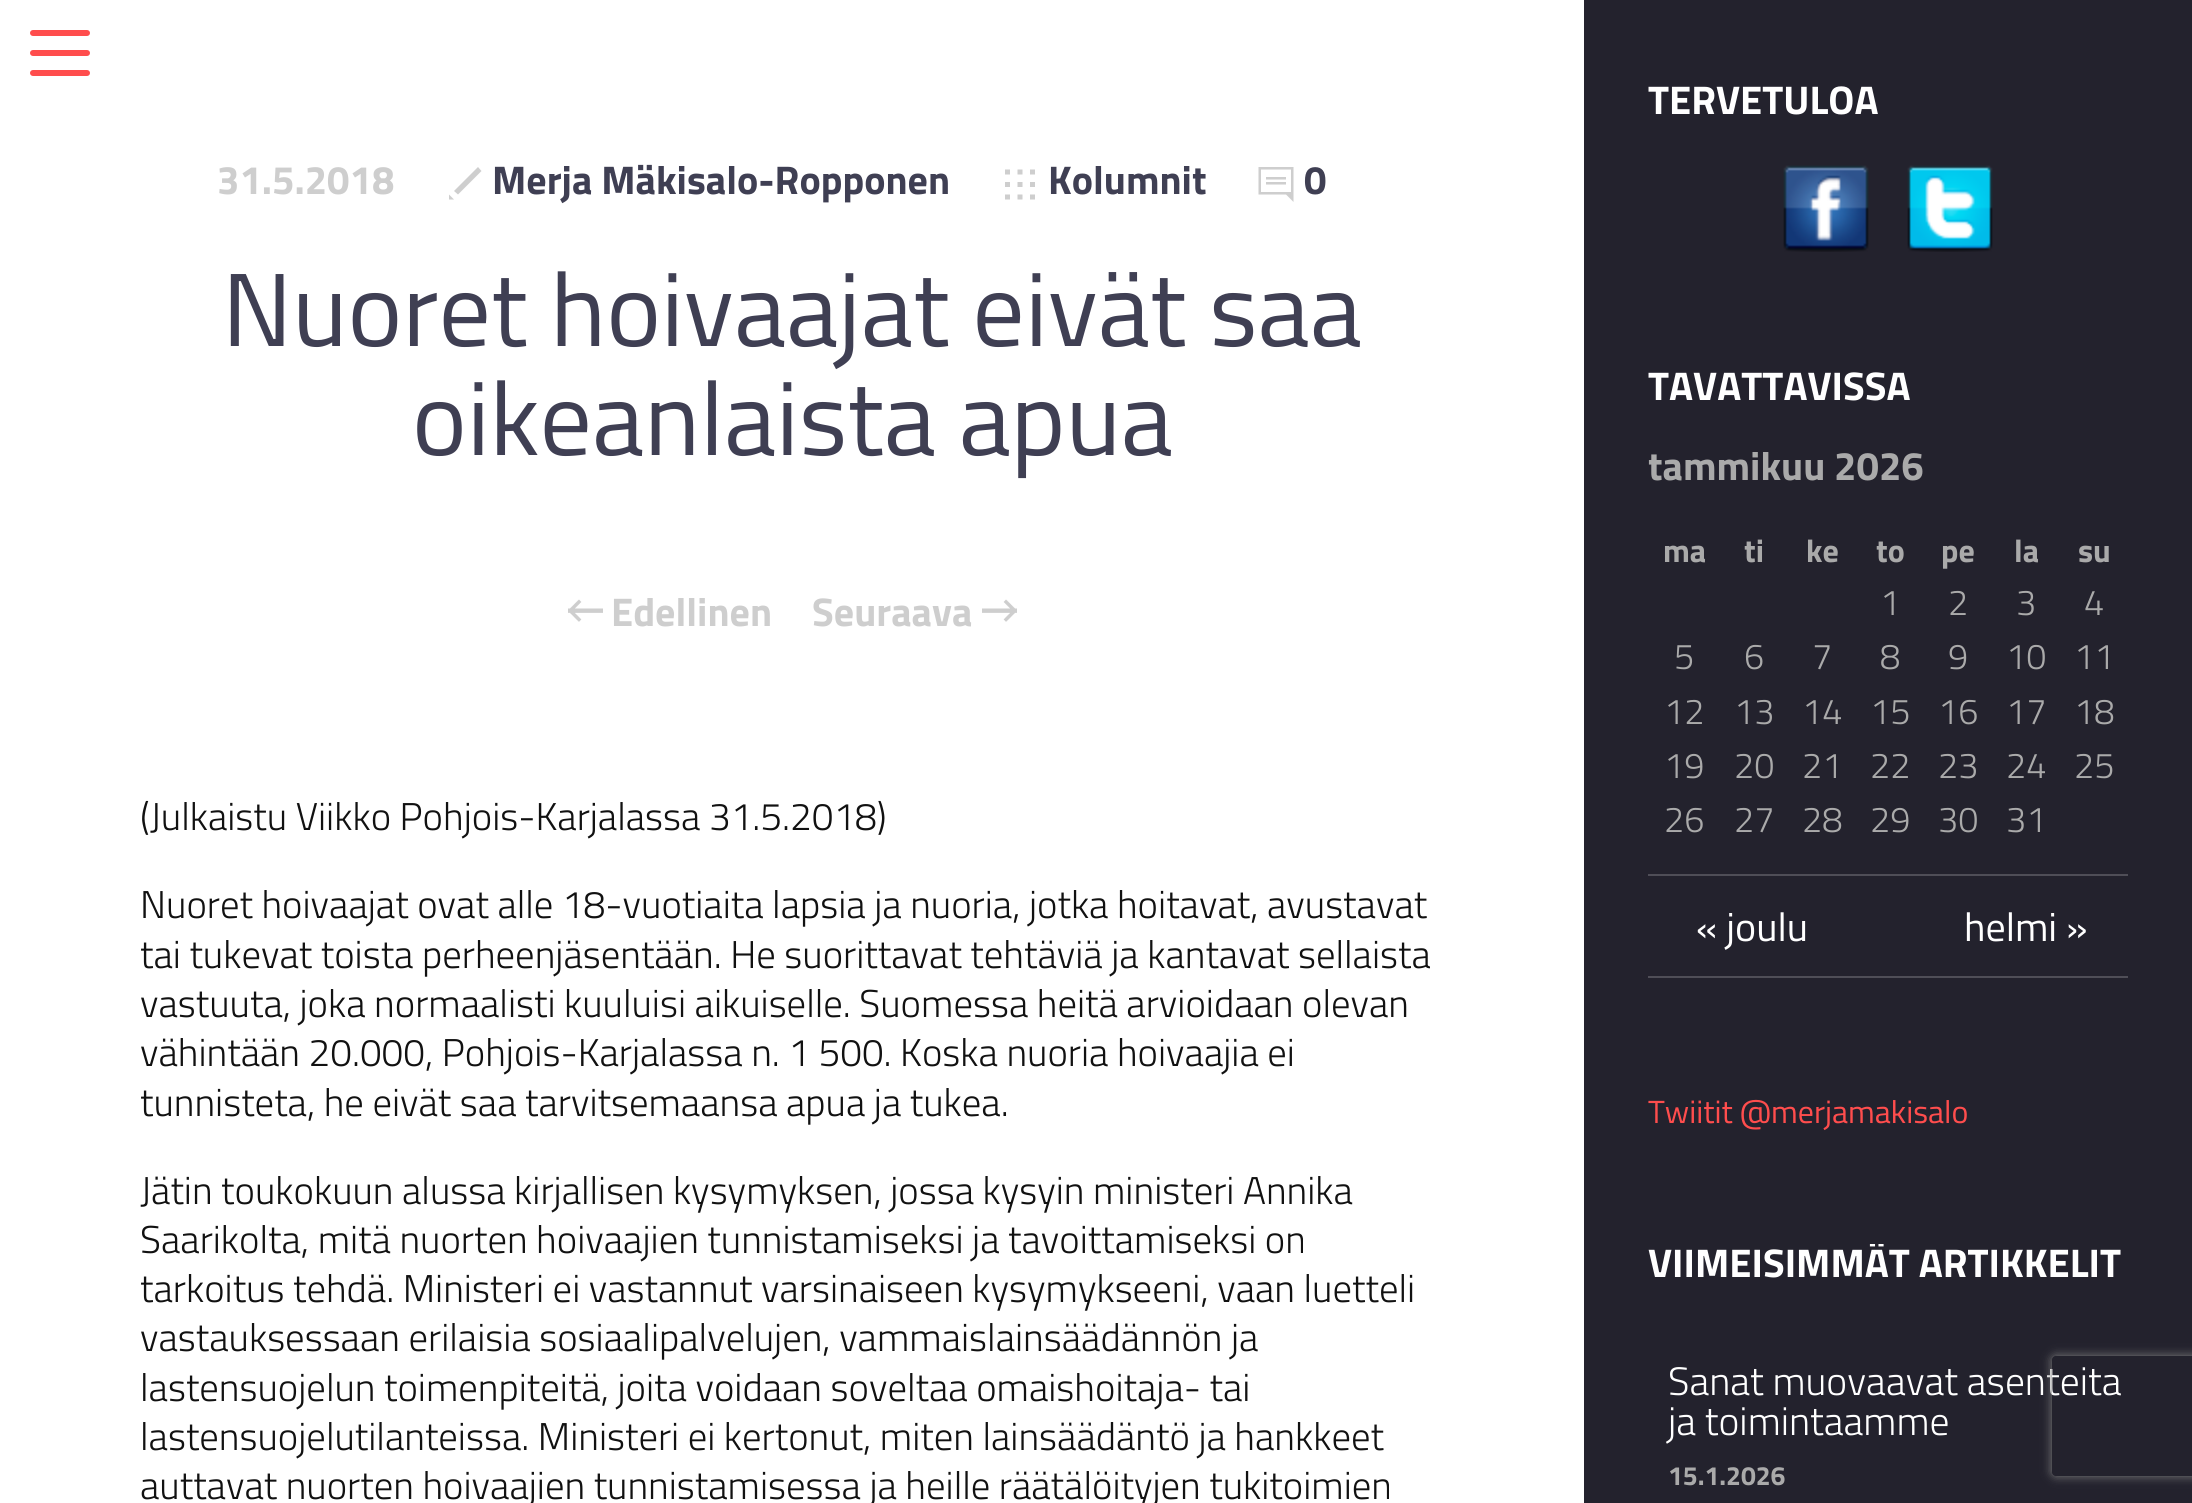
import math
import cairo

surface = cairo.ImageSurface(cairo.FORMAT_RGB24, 2192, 1503)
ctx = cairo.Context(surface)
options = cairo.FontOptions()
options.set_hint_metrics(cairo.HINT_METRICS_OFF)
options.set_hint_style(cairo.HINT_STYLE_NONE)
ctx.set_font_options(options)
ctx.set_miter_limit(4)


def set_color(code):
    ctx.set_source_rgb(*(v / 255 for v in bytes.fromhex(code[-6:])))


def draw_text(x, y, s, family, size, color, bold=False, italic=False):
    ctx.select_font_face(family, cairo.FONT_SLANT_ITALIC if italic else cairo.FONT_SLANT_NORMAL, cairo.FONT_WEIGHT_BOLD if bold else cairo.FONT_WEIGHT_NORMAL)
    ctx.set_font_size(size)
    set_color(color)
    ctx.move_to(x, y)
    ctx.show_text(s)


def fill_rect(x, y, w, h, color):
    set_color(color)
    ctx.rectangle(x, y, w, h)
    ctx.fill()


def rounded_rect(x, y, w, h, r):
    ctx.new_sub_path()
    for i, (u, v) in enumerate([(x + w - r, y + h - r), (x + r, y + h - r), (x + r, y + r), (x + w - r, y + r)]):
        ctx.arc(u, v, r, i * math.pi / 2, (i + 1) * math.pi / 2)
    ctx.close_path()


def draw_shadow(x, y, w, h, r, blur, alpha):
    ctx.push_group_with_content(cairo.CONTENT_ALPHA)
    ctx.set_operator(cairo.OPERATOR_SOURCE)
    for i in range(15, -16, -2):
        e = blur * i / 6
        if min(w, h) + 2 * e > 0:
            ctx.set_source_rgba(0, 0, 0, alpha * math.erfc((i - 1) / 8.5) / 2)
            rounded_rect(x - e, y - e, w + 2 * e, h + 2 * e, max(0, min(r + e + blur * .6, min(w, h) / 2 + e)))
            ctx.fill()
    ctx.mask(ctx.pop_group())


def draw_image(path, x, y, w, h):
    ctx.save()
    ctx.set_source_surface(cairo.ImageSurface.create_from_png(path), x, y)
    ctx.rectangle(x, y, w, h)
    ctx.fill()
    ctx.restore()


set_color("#ffffff")
ctx.paint()
set_color("#ff4d4d")
rounded_rect(30, 50, 60, 6, 3)
ctx.fill()
rounded_rect(30, 30, 60, 6, 3)
ctx.fill()
rounded_rect(30, 70, 60, 6, 3)
ctx.fill()
draw_text(217, 194, "31.5.2018", "Titillium Web", 40, "#cecece", bold=True)
ctx.new_path()
ctx.move_to(478, 167)
ctx.line_to(454, 191)
ctx.line_to(458, 194.5)
ctx.line_to(481.5, 171)
ctx.close_path()
ctx.move_to(449, 194.5)
ctx.line_to(449, 199.5)
ctx.line_to(454, 199.5)
ctx.close_path()
ctx.fill()
draw_text(492, 194, "Merja Mäkisalo-Ropponen", "Titillium Web", 40, "#3f3f53", bold=True)
draw_image("assets/img1.png", 1005, 169, 30, 31)
draw_text(1048, 194, "Kolumnit", "Titillium Web", 40, "#3f3f53", bold=True)
draw_image("assets/img2.png", 1258, 167, 36, 35)
draw_text(1304, 194, "0", "Titillium Web", 40, "#3f3f53", bold=True)
draw_text(222, 346, "Nuoret hoivaajat eivät saa", "Titillium Web", 104, "#3f3f53")
draw_text(412, 455, "oikeanlaista apua", "Titillium Web", 104, "#3f3f53")
draw_image("assets/img3.png", 568, 599, 35, 23)
draw_text(611, 626, "Edellinen", "Titillium Web", 40, "#cecece", bold=True)
draw_text(812, 626, "Seuraava", "Titillium Web", 40, "#cecece", bold=True)
draw_image("assets/img4.png", 982, 599, 35, 23)
draw_text(140, 830, "(Julkaistu Viikko Pohjois-Karjalassa 31.5.2018)", "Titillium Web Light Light", 38.75, "#111111")
draw_text(140, 918, "Nuoret hoivaajat ovat alle 18-vuotiaita lapsia ja nuoria, jotka hoitavat, avustavat", "Titillium Web Light Light", 38.75, "#111111")
draw_text(140, 968, "tai tukevat toista perheenjäsentään. He suorittavat tehtäviä ja kantavat sellaista", "Titillium Web Light Light", 38.75, "#111111")
draw_text(140, 1017, "vastuuta, joka normaalisti kuuluisi aikuiselle. Suomessa heitä arvioidaan olevan", "Titillium Web Light Light", 38.75, "#111111")
draw_text(140, 1066, "vähintään 20.000, Pohjois-Karjalassa n. 1 500. Koska nuoria hoivaajia ei", "Titillium Web Light Light", 38.75, "#111111")
draw_text(140, 1116, "tunnisteta, he eivät saa tarvitsemaansa apua ja tukea.", "Titillium Web Light Light", 38.75, "#111111")
draw_text(140, 1204, "Jätin toukokuun alussa kirjallisen kysymyksen, jossa kysyin ministeri Annika", "Titillium Web Light Light", 38.75, "#111111")
draw_text(140, 1253, "Saarikolta, mitä nuorten hoivaajien tunnistamiseksi ja tavoittamiseksi on", "Titillium Web Light Light", 38.75, "#111111")
draw_text(140, 1302, "tarkoitus tehdä. Ministeri ei vastannut varsinaiseen kysymykseeni, vaan luetteli", "Titillium Web Light Light", 38.75, "#111111")
draw_text(140, 1351, "vastauksessaan erilaisia sosiaalipalvelujen, vammaislainsäädännön ja", "Titillium Web Light Light", 38.75, "#111111")
draw_text(140, 1401, "lastensuojelun toimenpiteitä, joita voidaan soveltaa omaishoitaja- tai", "Titillium Web Light Light", 38.75, "#111111")
draw_text(140, 1450, "lastensuojelutilanteissa. Ministeri ei kertonut, miten lainsäädäntö ja hankkeet", "Titillium Web Light Light", 38.75, "#111111")
draw_text(140, 1499, "auttavat nuorten hoivaajien tunnistamisessa ja heille räätälöityjen tukitoimien", "Titillium Web Light Light", 38.75, "#111111")
fill_rect(1584, 0, 608, 1503, "#23222d")
draw_text(1648, 114, "TERVETULOA", "Titillium Web", 40, "#ffffff", bold=True)
draw_image("assets/img5.png", 1783, 165, 86, 87)
draw_image("assets/img6.png", 1907, 165, 86, 87)
draw_text(1648, 400, "TAVATTAVISSA", "Titillium Web", 40, "#ffffff", bold=True)
draw_text(1648, 480, "tammikuu 2026", "Titillium Web", 40, "#aaaaaa", bold=True)
draw_text(1663, 562, "ma", "Titillium Web", 32, "#aaaaaa", bold=True)
draw_text(1744, 562, "ti", "Titillium Web", 32, "#aaaaaa", bold=True)
draw_text(1806, 562, "ke", "Titillium Web", 32, "#aaaaaa", bold=True)
draw_text(1876, 562, "to", "Titillium Web", 32, "#aaaaaa", bold=True)
draw_text(1941, 562, "pe", "Titillium Web", 32, "#aaaaaa", bold=True)
draw_text(2014, 562, "la", "Titillium Web", 32, "#aaaaaa", bold=True)
draw_text(2078, 562, "su", "Titillium Web", 32, "#aaaaaa", bold=True)
fill_rect(1648, 874, 480, 2, "#4f4e57")
draw_text(1880, 615, "1", "Titillium Web Light Light", 36, "#aaaaaa")
draw_text(1948, 615, "2", "Titillium Web Light Light", 36, "#aaaaaa")
draw_text(2016, 615, "3", "Titillium Web Light Light", 36, "#aaaaaa")
draw_text(2084, 615, "4", "Titillium Web Light Light", 36, "#aaaaaa")
draw_text(1674, 669, "5", "Titillium Web Light Light", 36, "#aaaaaa")
draw_text(1744, 669, "6", "Titillium Web Light Light", 36, "#aaaaaa")
draw_text(1812, 669, "7", "Titillium Web Light Light", 36, "#aaaaaa")
draw_text(1880, 669, "8", "Titillium Web Light Light", 36, "#aaaaaa")
draw_text(1948, 669, "9", "Titillium Web Light Light", 36, "#aaaaaa")
draw_text(2006, 669, "10", "Titillium Web Light Light", 36, "#aaaaaa")
draw_text(2074, 669, "11", "Titillium Web Light Light", 36, "#aaaaaa")
draw_text(1664, 724, "12", "Titillium Web Light Light", 36, "#aaaaaa")
draw_text(1734, 724, "13", "Titillium Web Light Light", 36, "#aaaaaa")
draw_text(1802, 724, "14", "Titillium Web Light Light", 36, "#aaaaaa")
draw_text(1870, 724, "15", "Titillium Web Light Light", 36, "#aaaaaa")
draw_text(1938, 724, "16", "Titillium Web Light Light", 36, "#aaaaaa")
draw_text(2006, 724, "17", "Titillium Web Light Light", 36, "#aaaaaa")
draw_text(2074, 724, "18", "Titillium Web Light Light", 36, "#aaaaaa")
draw_text(1664, 778, "19", "Titillium Web Light Light", 36, "#aaaaaa")
draw_text(1734, 778, "20", "Titillium Web Light Light", 36, "#aaaaaa")
draw_text(1802, 778, "21", "Titillium Web Light Light", 36, "#aaaaaa")
draw_text(1870, 778, "22", "Titillium Web Light Light", 36, "#aaaaaa")
draw_text(1938, 778, "23", "Titillium Web Light Light", 36, "#aaaaaa")
draw_text(2006, 778, "24", "Titillium Web Light Light", 36, "#aaaaaa")
draw_text(2074, 778, "25", "Titillium Web Light Light", 36, "#aaaaaa")
draw_text(1664, 832, "26", "Titillium Web Light Light", 36, "#aaaaaa")
draw_text(1734, 832, "27", "Titillium Web Light Light", 36, "#aaaaaa")
draw_text(1802, 832, "28", "Titillium Web Light Light", 36, "#aaaaaa")
draw_text(1870, 832, "29", "Titillium Web Light Light", 36, "#aaaaaa")
draw_text(1938, 832, "30", "Titillium Web Light Light", 36, "#aaaaaa")
draw_text(2006, 832, "31", "Titillium Web Light Light", 36, "#aaaaaa")
fill_rect(1648, 976, 480, 2, "#4f4e57")
draw_text(1696, 941, "« joulu", "Titillium Web", 40, "#ffffff")
draw_text(1964, 941, "helmi »", "Titillium Web", 40, "#ffffff")
draw_text(1648, 1123, "Twiitit @merjamakisalo", "Titillium Web", 32, "#ff4d4d")
ctx.save()
ctx.rectangle(1648, 1244, 480, 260)
ctx.clip()
draw_text(1648, 1277, "VIIMEISIMMÄT ARTIKKELIT", "Titillium Web", 40, "#ffffff", bold=True)
ctx.restore()
draw_text(1668, 1395, "Sanat muovaavat asenteita", "Titillium Web Light Light", 39.6, "#ffffff")
draw_text(1668, 1435, "ja toimintaamme", "Titillium Web Light Light", 39.6, "#ffffff")
draw_text(1668, 1485, "15.1.2026", "Titillium Web", 26.5, "#aaaaaa", bold=True)
ctx.save()
ctx.set_fill_rule(cairo.FILL_RULE_EVEN_ODD)
ctx.new_path()
ctx.move_to(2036, 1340)
ctx.line_to(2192, 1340)
ctx.line_to(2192, 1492)
ctx.line_to(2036, 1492)
ctx.close_path()
ctx.move_to(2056, 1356)
ctx.line_to(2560, 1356)
ctx.curve_to(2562, 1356, 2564, 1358, 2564, 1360)
ctx.line_to(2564, 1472)
ctx.curve_to(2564, 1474, 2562, 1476, 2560, 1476)
ctx.line_to(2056, 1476)
ctx.curve_to(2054, 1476, 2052, 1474, 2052, 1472)
ctx.line_to(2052, 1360)
ctx.curve_to(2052, 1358, 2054, 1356, 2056, 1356)
ctx.close_path()
ctx.clip()
set_color("#808080")
draw_shadow(2052, 1356, 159, 120, 4, 5, 1)
ctx.restore()
surface.write_to_png("output.png")
